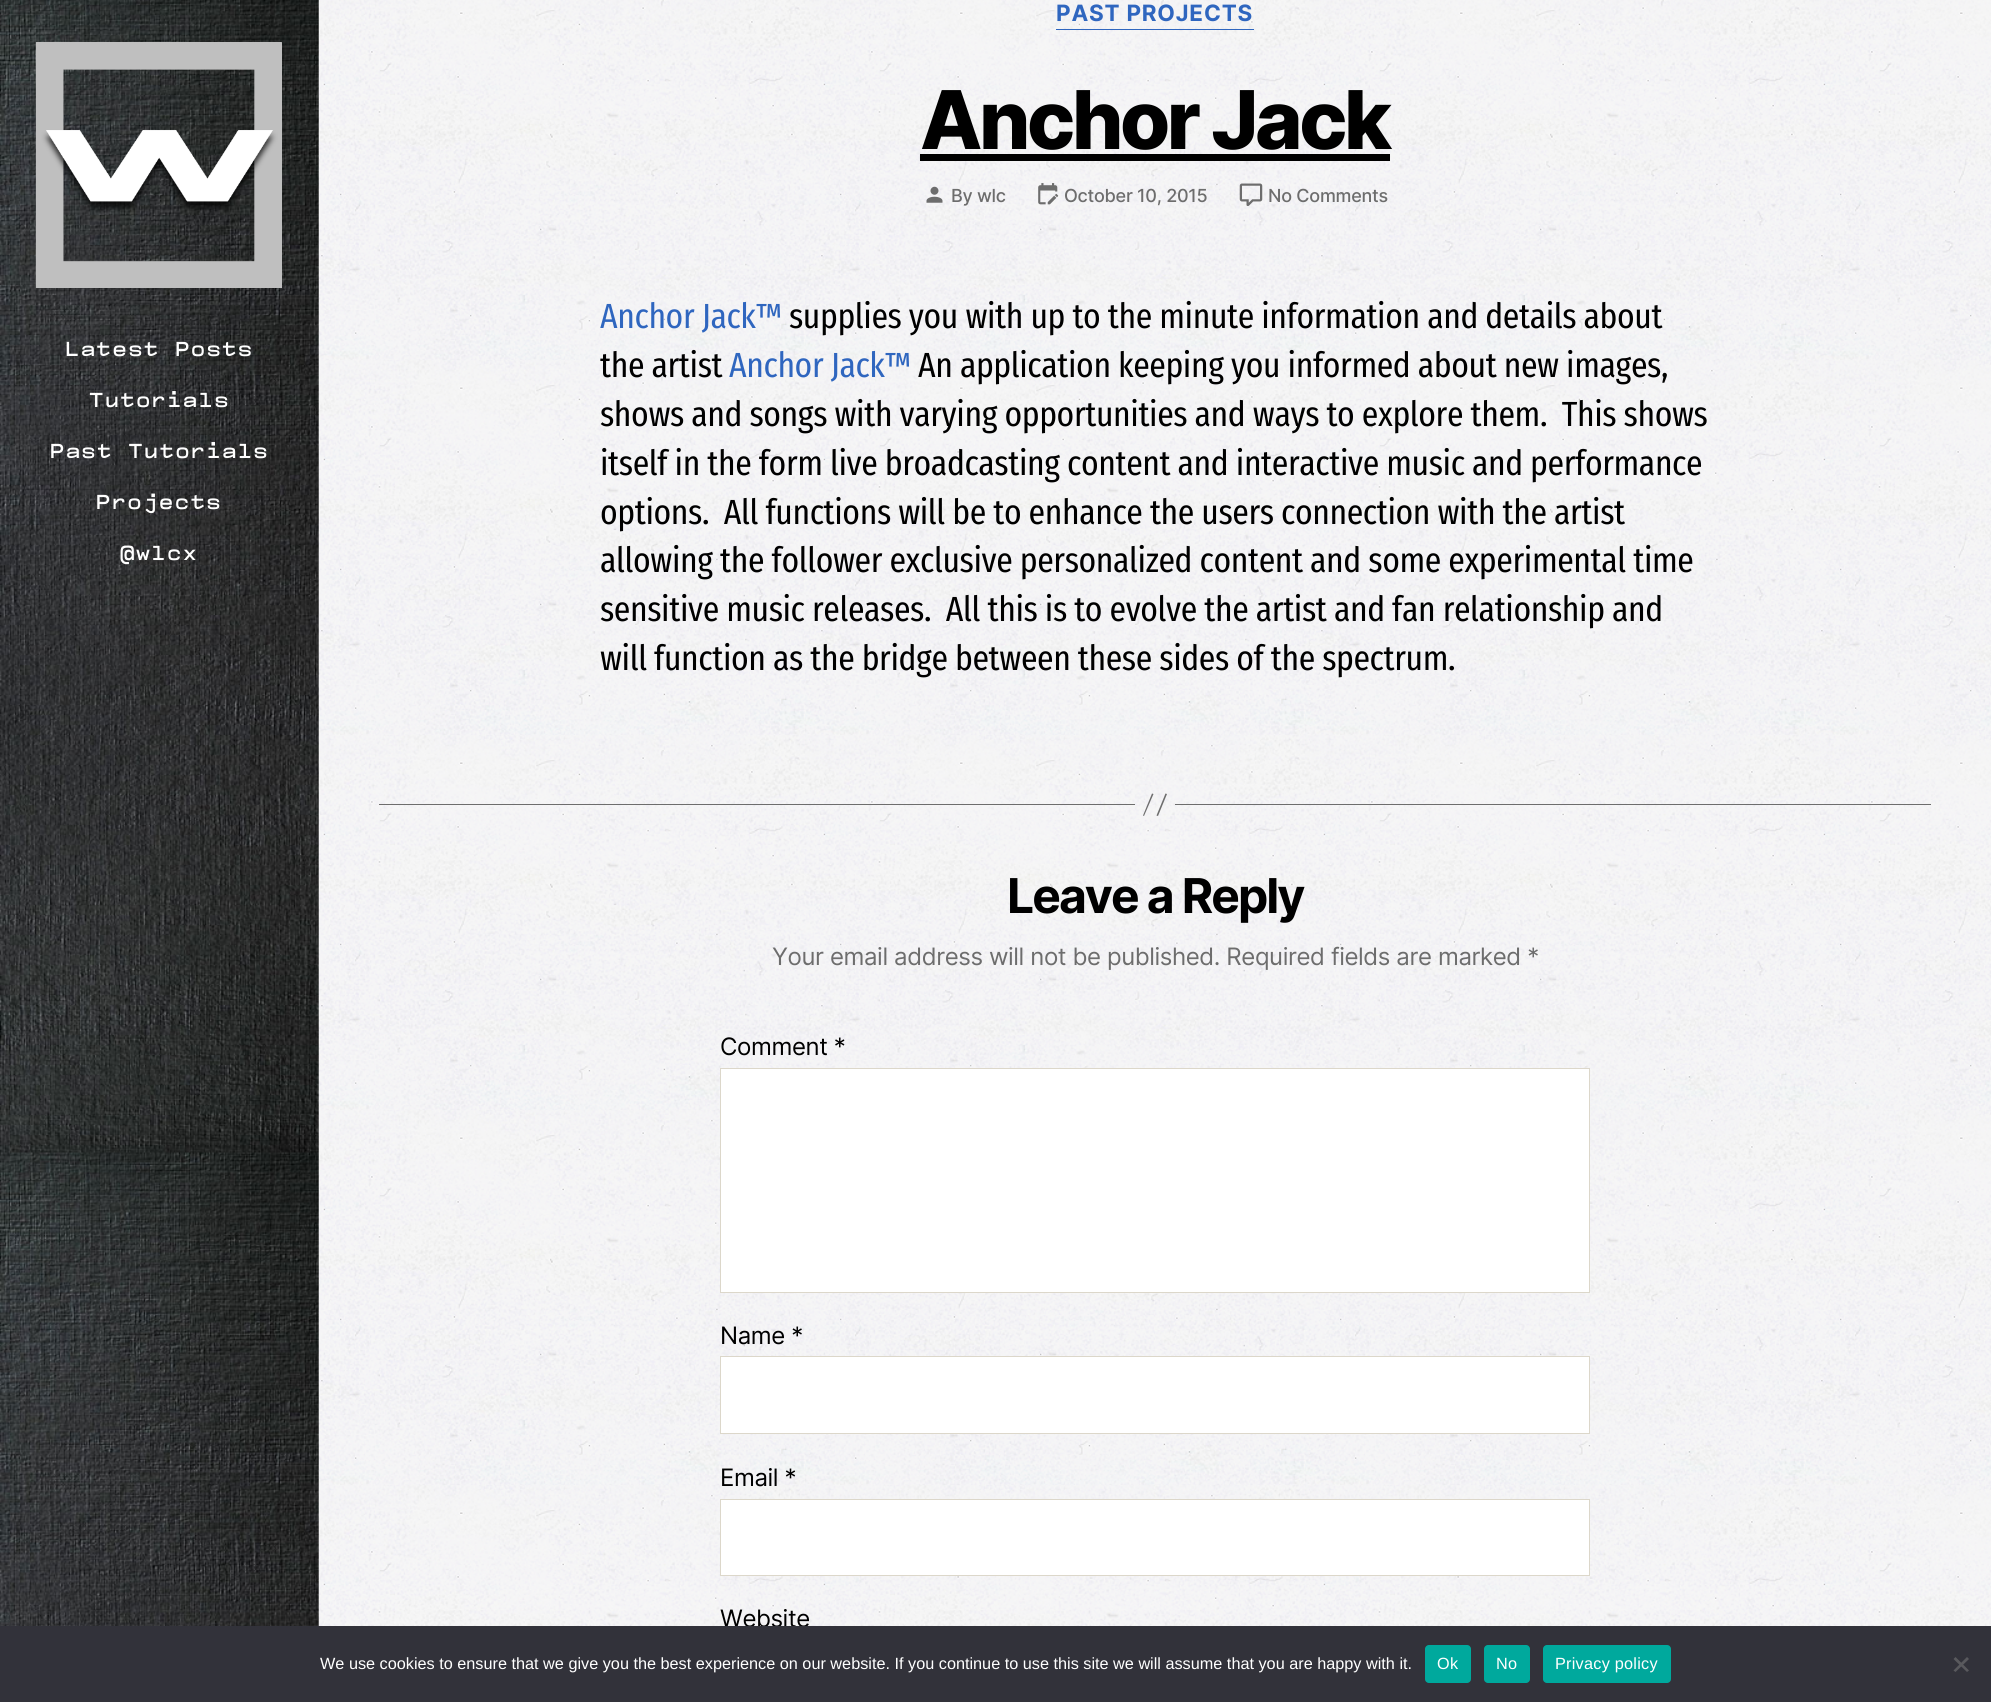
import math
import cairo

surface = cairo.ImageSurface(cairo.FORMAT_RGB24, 1991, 1702)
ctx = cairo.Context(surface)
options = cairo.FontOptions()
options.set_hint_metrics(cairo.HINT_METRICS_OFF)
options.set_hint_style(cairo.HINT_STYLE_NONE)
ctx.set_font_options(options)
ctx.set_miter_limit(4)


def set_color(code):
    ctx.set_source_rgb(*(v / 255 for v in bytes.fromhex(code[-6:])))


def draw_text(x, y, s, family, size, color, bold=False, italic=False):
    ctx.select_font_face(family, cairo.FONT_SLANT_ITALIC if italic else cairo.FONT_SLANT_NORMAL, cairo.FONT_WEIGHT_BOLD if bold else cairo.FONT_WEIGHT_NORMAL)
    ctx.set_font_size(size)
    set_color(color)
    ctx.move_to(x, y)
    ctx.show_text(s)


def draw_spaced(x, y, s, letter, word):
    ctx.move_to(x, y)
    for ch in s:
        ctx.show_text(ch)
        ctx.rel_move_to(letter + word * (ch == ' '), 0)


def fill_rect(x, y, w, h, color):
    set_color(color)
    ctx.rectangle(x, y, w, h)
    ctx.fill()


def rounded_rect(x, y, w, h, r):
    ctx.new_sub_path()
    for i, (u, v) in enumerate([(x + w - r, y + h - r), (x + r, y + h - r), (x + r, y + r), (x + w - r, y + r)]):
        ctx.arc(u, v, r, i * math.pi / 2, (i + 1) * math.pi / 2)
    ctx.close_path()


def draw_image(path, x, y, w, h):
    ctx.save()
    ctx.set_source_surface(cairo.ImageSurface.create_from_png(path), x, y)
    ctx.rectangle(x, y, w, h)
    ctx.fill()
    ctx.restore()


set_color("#ffffff")
ctx.paint()
draw_image("assets/img1.png", 318, 0, 1673, 1626)
draw_image("assets/img2.png", 0, 0, 319, 1626)
draw_image("assets/img3.png", 35, 42, 247, 246)
ctx.select_font_face("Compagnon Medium")
ctx.set_font_size(24)
set_color("#ffffff")
draw_spaced(65, 356, "Latest Posts", 1.25, 0)
draw_spaced(89, 407, "Tutorials", 1.25, 0)
draw_spaced(50, 458, "Past Tutorials", 1.25, 0)
draw_spaced(96, 509, "Projects", 1.25, 0)
draw_spaced(120, 560, "@wlcx", 1.25, 0)
fill_rect(1056, 29, 198, 1, "#2f66bf")
ctx.select_font_face("Inter", cairo.FONT_SLANT_NORMAL, cairo.FONT_WEIGHT_BOLD)
ctx.set_font_size(22.5)
draw_spaced(1056, 21, "PAST PROJECTS", 0.8, 0)
ctx.select_font_face("Inter ExtraBold")
ctx.set_font_size(81)
set_color("#000000")
draw_spaced(920, 149, "Anchor Jack", -3.4, 0)
fill_rect(920, 154, 470, 7, "#000000")
draw_image("assets/img4.png", 926, 186, 17, 17)
ctx.select_font_face("Inter Medium")
ctx.set_font_size(18)
set_color("#6d6d6d")
draw_spaced(951, 202, "By wlc", -0.25, 0)
draw_image("assets/img5.png", 1038, 183, 21, 22)
draw_spaced(1064, 202, "October 10, 2015", -0.25, 0)
draw_image("assets/img6.png", 1239, 183, 24, 23)
draw_spaced(1268, 202, "No Comments", -0.25, 0)
ctx.select_font_face("Fira Sans Condensed")
ctx.set_font_size(34.9)
set_color("#2f66bf")
draw_spaced(600, 328, "Anchor Jack™", -0.4, 0)
set_color("#000000")
draw_spaced(789, 328, "supplies you with up to the minute information and details about", -0.4, 0)
draw_spaced(600, 377, "the artist", -0.4, 0)
set_color("#2f66bf")
draw_spaced(729, 377, "Anchor Jack™", -0.4, 0)
set_color("#000000")
draw_spaced(918, 377, "An application keeping you informed about new images,", -0.4, 0)
draw_spaced(600, 426, "shows and songs with varying opportunities and ways to explore them.  This shows", -0.4, 0)
draw_spaced(600, 475, "itself in the form live broadcasting content and interactive music and performance", -0.4, 0)
draw_spaced(600, 524, "options.  All functions will be to enhance the users connection with the artist", -0.4, 0)
draw_spaced(600, 572, "allowing the follower exclusive personalized content and some experimental time", -0.4, 0)
draw_spaced(600, 621, "sensitive music releases.  All this is to evolve the artist and fan relationship and", -0.4, 0)
draw_spaced(600, 670, "will function as the bridge between these sides of the spectrum.", -0.4, 0)
fill_rect(1175, 804, 756, 1, "#6d6d6d")
fill_rect(379, 804, 756, 1, "#6d6d6d")
ctx.new_path()
ctx.move_to(1152, 793.5)
ctx.line_to(1153.5, 794)
ctx.line_to(1144, 816)
ctx.line_to(1143, 815.5)
ctx.close_path()
ctx.move_to(1165.5, 793.5)
ctx.line_to(1167, 794)
ctx.line_to(1158, 816)
ctx.line_to(1156.5, 815.5)
ctx.close_path()
ctx.fill()
ctx.select_font_face("Inter", cairo.FONT_SLANT_NORMAL, cairo.FONT_WEIGHT_BOLD)
ctx.set_font_size(48)
set_color("#000000")
draw_spaced(1007, 913, "Leave a Reply", -2, 0)
ctx.select_font_face("Inter")
ctx.set_font_size(24)
set_color("#6d6d6d")
draw_spaced(772, 965, "Your email address will not be published. Required fields are marked *", -0.4, 0)
set_color("#000000")
draw_spaced(720, 1055, "Comment *", -0.4, 0)
set_color("#ffffff")
ctx.rectangle(720.5, 1068.5, 869, 224)
ctx.fill_preserve()
set_color("#dcd7ca")
ctx.set_line_width(1)
ctx.stroke()
set_color("#000000")
draw_spaced(720, 1344, "Name *", -0.4, 0)
set_color("#ffffff")
ctx.rectangle(720.5, 1356.5, 869, 77)
ctx.fill_preserve()
set_color("#dcd7ca")
ctx.stroke()
set_color("#000000")
draw_spaced(720, 1486, "Email *", -0.4, 0)
set_color("#ffffff")
ctx.rectangle(720.5, 1499.5, 869, 76)
ctx.fill_preserve()
set_color("#dcd7ca")
ctx.stroke()
set_color("#000000")
draw_spaced(720, 1627, "Website", -0.4, 0)
fill_rect(0, 1626, 1991, 76, "#32323a")
draw_text(320, 1669, "We use cookies to ensure that we give you the best experience on our website. If you continue to use this site we will assume that you are happy with it.", "Liberation Sans", 16.25, "#ffffff")
set_color("#00a99d")
rounded_rect(1425, 1645, 46, 38, 4)
ctx.fill()
set_color("#ffffff")
draw_spaced(1437, 1669, "Ok", 0.25, 0)
set_color("#00a99d")
rounded_rect(1484, 1645, 46, 38, 4)
ctx.fill()
set_color("#ffffff")
draw_spaced(1496, 1669, "No", 0.25, 0)
set_color("#00a99d")
rounded_rect(1543, 1645, 128, 38, 4)
ctx.fill()
set_color("#ffffff")
draw_spaced(1555, 1669, "Privacy policy", 0.25, 0)
set_color("#59595d")
ctx.new_path()
ctx.move_to(1967, 1657)
ctx.line_to(1969, 1659)
ctx.line_to(1955.5, 1672)
ctx.line_to(1953.5, 1670.5)
ctx.close_path()
ctx.fill()
ctx.new_path()
ctx.move_to(1953.5, 1659)
ctx.line_to(1955.5, 1657)
ctx.line_to(1969, 1670.5)
ctx.line_to(1967, 1672)
ctx.close_path()
ctx.fill()
surface.write_to_png("output.png")
